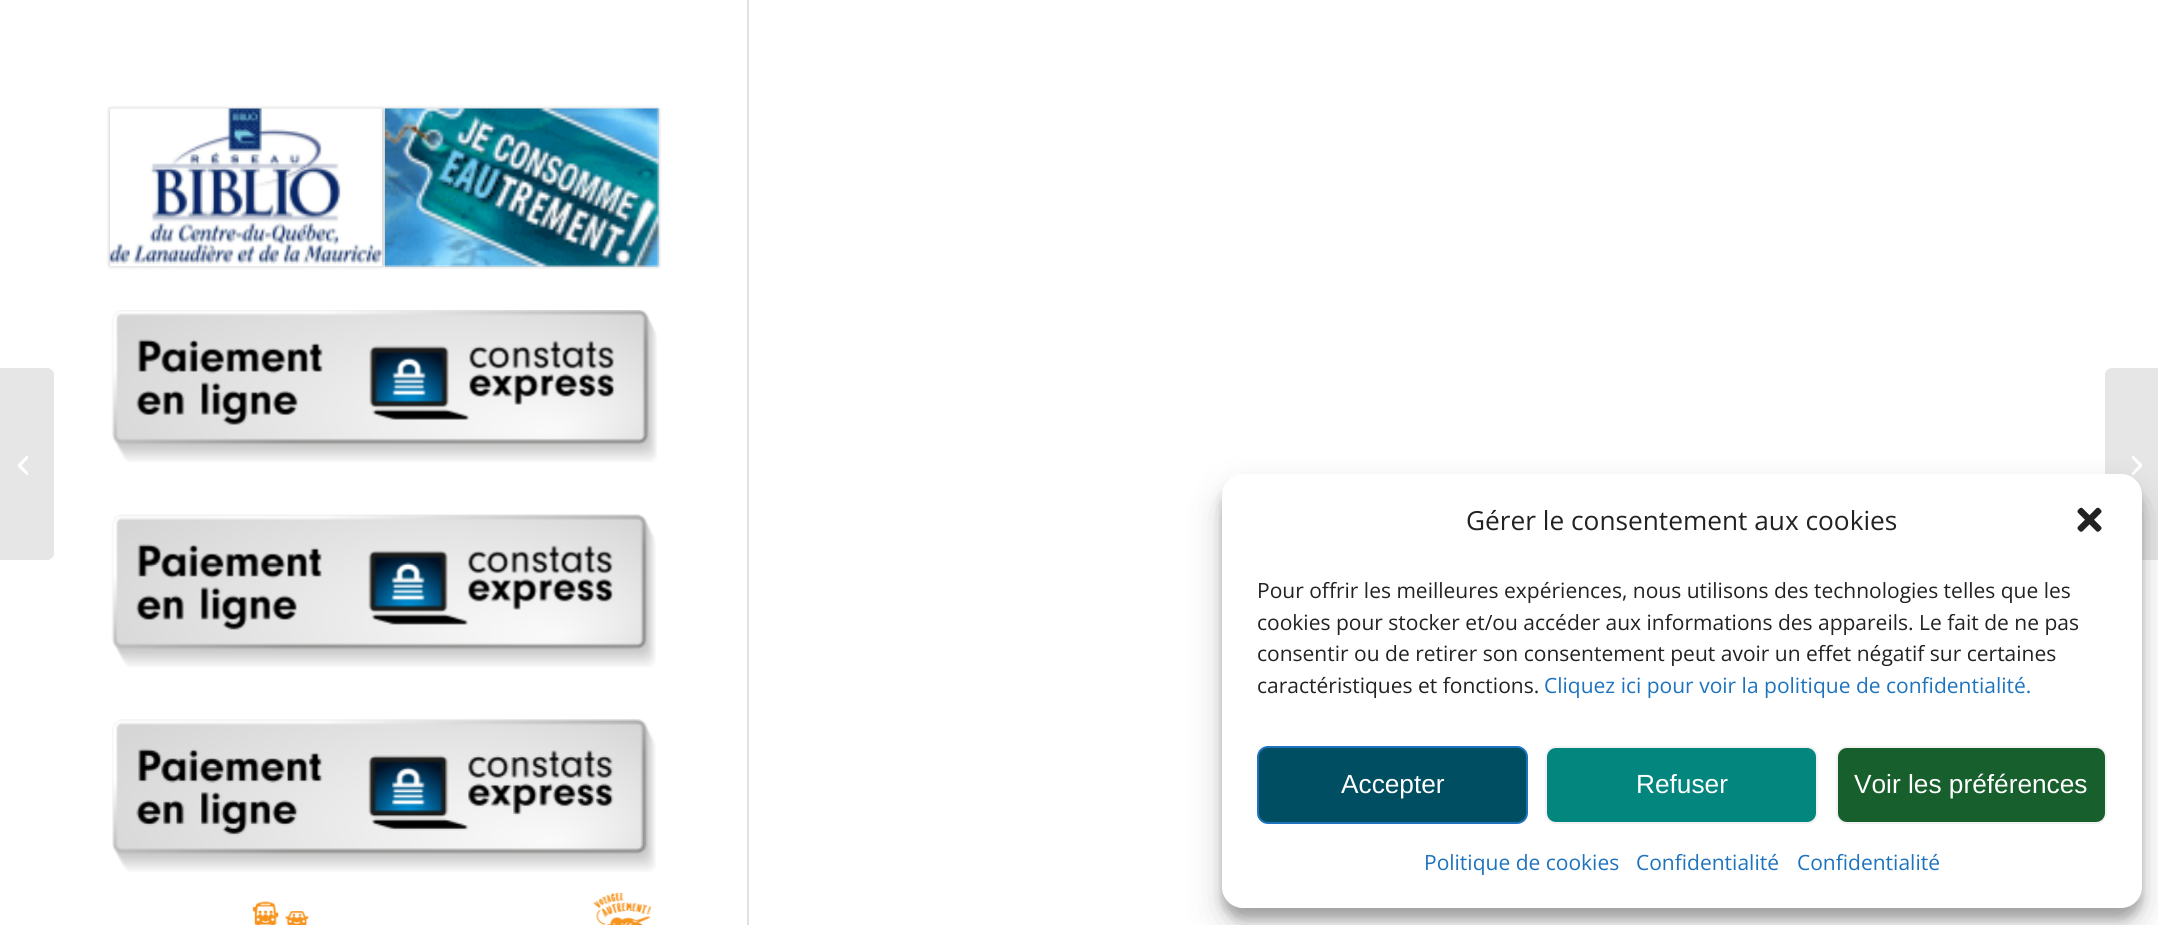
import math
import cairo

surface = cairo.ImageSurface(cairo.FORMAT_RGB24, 2158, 925)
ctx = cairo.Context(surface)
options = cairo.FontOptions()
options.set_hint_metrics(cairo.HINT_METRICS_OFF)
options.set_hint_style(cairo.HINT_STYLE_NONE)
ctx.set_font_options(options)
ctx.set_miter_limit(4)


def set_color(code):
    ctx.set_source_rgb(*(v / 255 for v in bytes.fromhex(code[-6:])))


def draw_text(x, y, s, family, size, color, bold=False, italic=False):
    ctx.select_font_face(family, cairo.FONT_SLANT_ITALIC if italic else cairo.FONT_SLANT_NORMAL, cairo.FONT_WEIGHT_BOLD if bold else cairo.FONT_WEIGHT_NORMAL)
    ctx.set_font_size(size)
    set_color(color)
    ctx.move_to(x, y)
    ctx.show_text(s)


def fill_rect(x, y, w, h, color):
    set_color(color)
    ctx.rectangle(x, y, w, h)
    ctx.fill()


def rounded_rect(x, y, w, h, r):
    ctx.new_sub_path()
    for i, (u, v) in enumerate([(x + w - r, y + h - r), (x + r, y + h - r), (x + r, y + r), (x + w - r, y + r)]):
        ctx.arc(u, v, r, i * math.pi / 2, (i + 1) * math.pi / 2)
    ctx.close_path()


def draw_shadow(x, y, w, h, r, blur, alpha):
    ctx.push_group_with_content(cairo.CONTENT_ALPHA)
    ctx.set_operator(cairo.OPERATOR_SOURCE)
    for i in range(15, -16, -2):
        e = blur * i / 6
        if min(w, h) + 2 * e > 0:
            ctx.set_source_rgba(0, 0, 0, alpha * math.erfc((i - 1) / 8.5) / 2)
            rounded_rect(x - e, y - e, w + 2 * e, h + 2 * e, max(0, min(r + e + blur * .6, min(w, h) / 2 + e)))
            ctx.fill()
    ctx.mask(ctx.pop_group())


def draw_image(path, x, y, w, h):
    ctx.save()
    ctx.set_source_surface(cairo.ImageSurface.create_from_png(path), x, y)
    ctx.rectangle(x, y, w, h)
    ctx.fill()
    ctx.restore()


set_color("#ffffff")
ctx.paint()
set_color("#e6e6e6")
ctx.new_path()
ctx.move_to(0, 368)
ctx.line_to(47, 368)
ctx.curve_to(51, 368, 54, 371, 54, 375)
ctx.line_to(54, 553)
ctx.curve_to(54, 557, 51, 560, 47, 560)
ctx.line_to(0, 560)
ctx.close_path()
ctx.fill()
draw_image("assets/img1.png", 18, 456, 10, 19)
fill_rect(747, 0, 2, 925, "#e1e1e1")
ctx.save()
ctx.set_fill_rule(cairo.FILL_RULE_EVEN_ODD)
ctx.new_path()
ctx.move_to(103, 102)
ctx.line_to(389, 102)
ctx.line_to(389, 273)
ctx.line_to(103, 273)
ctx.close_path()
ctx.move_to(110, 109)
ctx.line_to(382, 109)
ctx.line_to(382, 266)
ctx.line_to(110, 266)
ctx.close_path()
ctx.clip()
set_color("#000000")
draw_shadow(110, 109, 272, 157, 0, 2, 0.3)
ctx.restore()
draw_image("assets/img2.png", 108, 108, 275, 159)
ctx.save()
ctx.set_fill_rule(cairo.FILL_RULE_EVEN_ODD)
ctx.new_path()
ctx.move_to(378, 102)
ctx.line_to(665, 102)
ctx.line_to(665, 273)
ctx.line_to(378, 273)
ctx.close_path()
ctx.move_to(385, 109)
ctx.line_to(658, 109)
ctx.line_to(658, 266)
ctx.line_to(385, 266)
ctx.close_path()
ctx.clip()
set_color("#000000")
draw_shadow(385, 109, 273, 157, 0, 2, 0.3)
ctx.restore()
draw_image("assets/img3.png", 385, 108, 275, 159)
draw_image("assets/img4.png", 111, 310, 546, 152)
draw_image("assets/img5.png", 111, 514, 545, 153)
draw_image("assets/img6.png", 112, 719, 544, 153)
draw_image("assets/img7.png", 252, 892, 400, 33)
set_color("#e6e6e6")
ctx.new_path()
ctx.move_to(2112, 368)
ctx.line_to(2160, 368)
ctx.line_to(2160, 560)
ctx.line_to(2112, 560)
ctx.curve_to(2108, 560, 2105, 557, 2105, 553)
ctx.line_to(2105, 375)
ctx.curve_to(2105, 371, 2108, 368, 2112, 368)
ctx.close_path()
ctx.fill()
draw_image("assets/img8.png", 2132, 456, 10, 19)
set_color("#000000")
draw_shadow(1222, 485, 920, 434, 21, 5, 0.23)
draw_shadow(1222, 492, 920, 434, 21, 17.5, 0.19)
set_color("#ffffff")
rounded_rect(1222, 474, 920, 434, 21)
ctx.fill()
draw_text(1466, 530, "Gérer le consentement aux cookies", "Open Sans", 26.25, "#222222")
draw_image("assets/img9.png", 2077, 507, 25, 25)
draw_text(1257, 598, "Pour offrir les meilleures expériences, nous utilisons des technologies telles que les", "Open Sans", 21, "#222222")
draw_text(1257, 630, "cookies pour stocker et/ou accéder aux informations des appareils. Le fait de ne pas", "Open Sans", 21, "#222222")
draw_text(1257, 661, "consentir ou de retirer son consentement peut avoir un effet négatif sur certaines", "Open Sans", 21, "#222222")
draw_text(1257, 693, "caractéristiques et fonctions.", "Open Sans", 21, "#222222")
draw_text(1544, 693, "Cliquez ici pour voir la politique de confidentialité.", "Open Sans", 21, "#1e73be")
set_color("#004e61")
rounded_rect(1258, 747, 269, 76, 10)
ctx.fill_preserve()
set_color("#1e73be")
ctx.stroke()
draw_text(1341, 793, "Accepter", "Liberation Sans", 26.25, "#ffffff")
set_color("#03867e")
rounded_rect(1546, 747, 271, 76, 10)
ctx.fill_preserve()
set_color("#f2f2f2")
ctx.stroke()
draw_text(1636, 793, "Refuser", "Liberation Sans", 26.25, "#ffffff")
set_color("#175f2c")
rounded_rect(1837, 747, 269, 76, 10)
ctx.fill_preserve()
set_color("#f2f2f2")
ctx.stroke()
draw_text(1854, 793, "Voir les préférences", "Liberation Sans", 26.25, "#ffffff")
draw_text(1424, 870, "Politique de cookies", "Open Sans", 21, "#1e73be")
draw_text(1636, 870, "Confidentialité", "Open Sans", 21, "#1e73be")
draw_text(1797, 870, "Confidentialité", "Open Sans", 21, "#1e73be")
surface.write_to_png("output.png")
